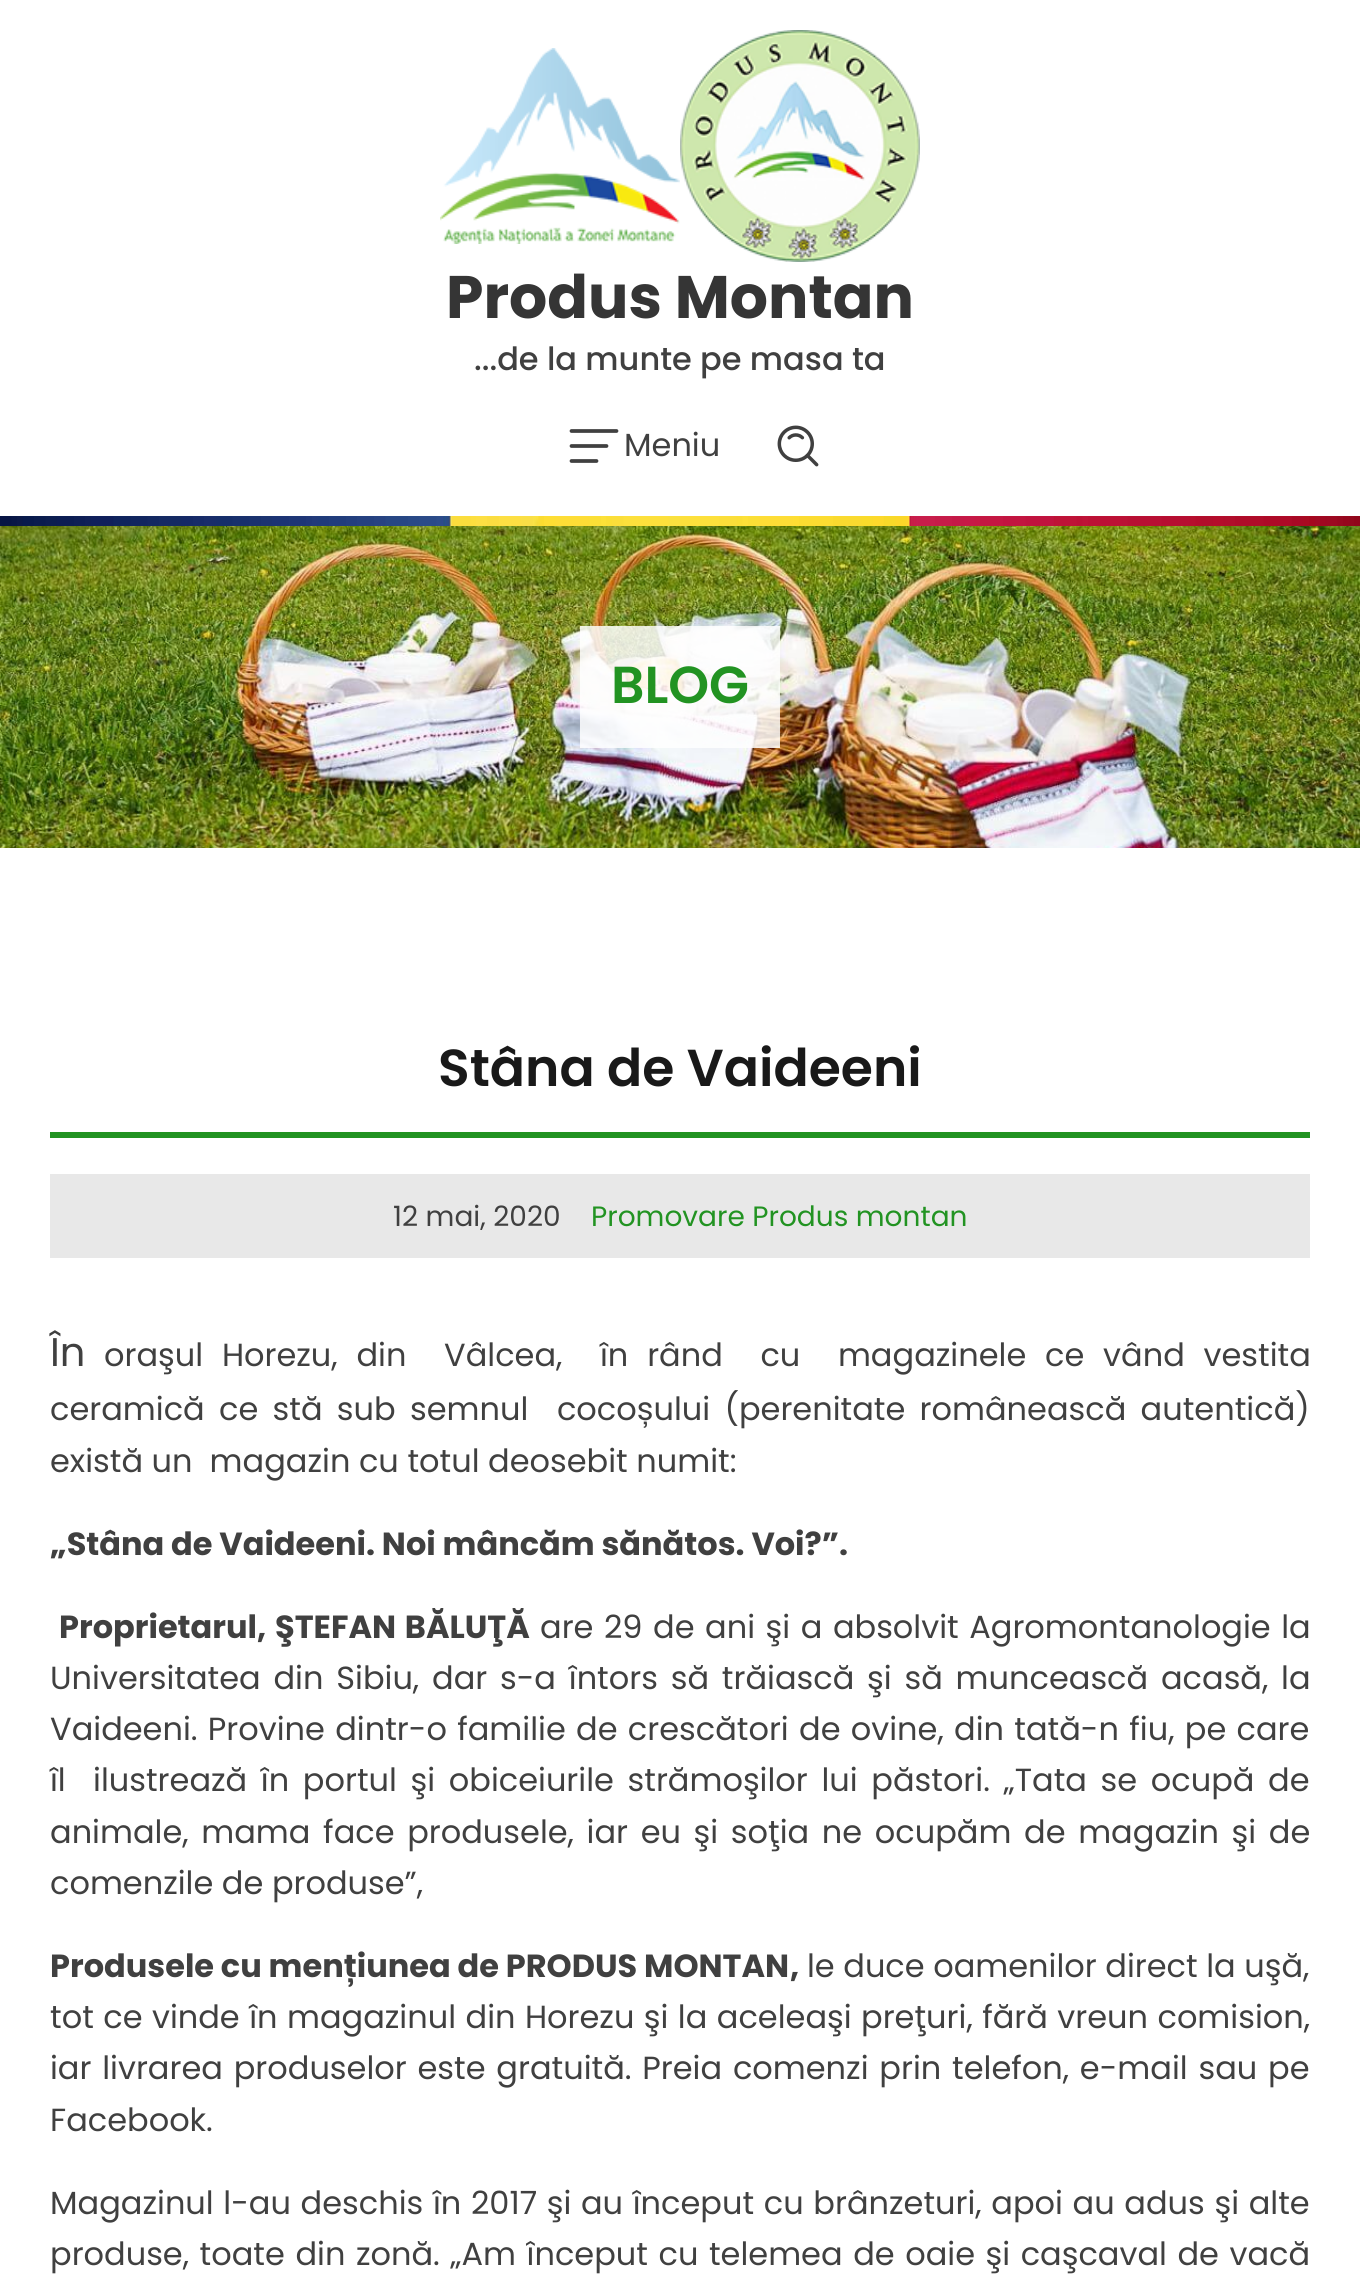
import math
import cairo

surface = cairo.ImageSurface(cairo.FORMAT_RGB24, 1360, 2286)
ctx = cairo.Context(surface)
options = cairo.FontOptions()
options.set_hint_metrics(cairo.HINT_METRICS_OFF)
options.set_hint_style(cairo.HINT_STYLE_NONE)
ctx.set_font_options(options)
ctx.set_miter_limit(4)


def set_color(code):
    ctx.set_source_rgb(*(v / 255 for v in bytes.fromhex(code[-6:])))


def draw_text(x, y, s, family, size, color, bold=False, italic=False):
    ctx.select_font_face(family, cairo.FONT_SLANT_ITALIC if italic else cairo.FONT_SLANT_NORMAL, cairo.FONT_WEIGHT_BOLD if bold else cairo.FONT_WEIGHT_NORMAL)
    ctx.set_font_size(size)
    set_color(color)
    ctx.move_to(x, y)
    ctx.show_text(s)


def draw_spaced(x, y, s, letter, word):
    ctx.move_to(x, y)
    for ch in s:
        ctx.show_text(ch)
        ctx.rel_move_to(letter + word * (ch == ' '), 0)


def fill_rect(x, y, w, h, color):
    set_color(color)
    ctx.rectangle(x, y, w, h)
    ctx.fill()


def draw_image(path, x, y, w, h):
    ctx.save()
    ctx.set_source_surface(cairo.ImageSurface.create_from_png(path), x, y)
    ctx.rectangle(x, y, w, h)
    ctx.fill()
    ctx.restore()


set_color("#ffffff")
ctx.paint()
draw_image("assets/img1.png", 0, 516, 1360, 10)
draw_image("assets/img2.png", 440, 48, 240, 196)
draw_image("assets/img3.png", 680, 30, 240, 232)
draw_text(446, 318, "Produs Montan", "Poppins", 60, "#353535", bold=True)
draw_text(474, 370, "...de la munte pe masa ta", "Poppins Medium", 32, "#404040")
draw_image("assets/img4.png", 569, 429, 50, 34)
draw_text(624, 456, "Meniu", "Poppins", 32, "#404040")
draw_image("assets/img5.png", 777, 425, 42, 42)
draw_image("assets/img6.png", 0, 526, 1360, 322)
ctx.set_source_rgba(1, 1, 1, 0.83)
ctx.rectangle(580, 626, 200, 122)
ctx.fill()
draw_text(611, 703, "BLOG", "Poppins SemiBold", 52, "#229322")
fill_rect(50, 1132, 1260, 6, "#229322")
draw_text(438, 1086, "Stâna de Vaideeni", "Poppins SemiBold", 52, "#191919")
fill_rect(50, 1174, 1260, 84, "#e8e8e8")
draw_text(393, 1226, "12 mai, 2020", "Poppins", 28, "#404040")
draw_text(591, 1226, "Promovare Produs montan", "Poppins", 28, "#229322")
draw_text(50, 1366, "În", "Poppins", 40, "#404040")
ctx.set_font_size(32)
draw_spaced(104, 1366, "oraşul Horezu, din  Vâlcea,  în rând  cu  magazinele ce vând vestita", 0, 10.25)
draw_spaced(50, 1420, "ceramică ce stă sub semnul  cocoșului (perenitate românească autentică)", 0, 5.75)
draw_text(50, 1472, "există un  magazin cu totul deosebit numit:", "Poppins", 32, "#404040")
draw_text(50, 1555, "„Stâna de Vaideeni. Noi mâncăm sănătos. Voi?”.", "Poppins", 32, "#404040", bold=True)
draw_spaced(59, 1638, "Proprietarul, ŞTEFAN BĂLUŢĂ", 0, 2)
ctx.select_font_face("Poppins")
draw_spaced(540, 1638, "are 29 de ani şi a absolvit Agromontanologie la", 0, 2)
draw_spaced(50, 1689, "Universitatea din Sibiu, dar s-a întors să trăiască şi să muncească acasă, la", 0, 4.25)
draw_spaced(50, 1740, "Vaideeni. Provine dintr-o familie de crescători de ovine, din tată-n fiu, pe care", 0, 1.75)
draw_spaced(50, 1791, "îl  ilustrează în portul şi obiceiurile strămoşilor lui păstori. „Tata se ocupă de", 0, 5.1)
draw_spaced(50, 1843, "animale, mama face produsele, iar eu şi soţia ne ocupăm de magazin şi de", 0, 4.1)
draw_text(50, 1894, "comenzile de produse”,", "Poppins", 32, "#404040")
draw_text(50, 1977, "Produsele cu mențiunea de PRODUS MONTAN", "Poppins", 32, "#404040", bold=True)
draw_text(790, 1977, ",", "Poppins", 32, "#404040", bold=True)
draw_text(807, 1977, "le duce oamenilor direct la uşă,", "Poppins", 32, "#404040")
draw_spaced(50, 2028, "tot ce vinde în magazinul din Horezu şi la aceleaşi preţuri, fără vreun comision,", 0, 0.9)
draw_spaced(50, 2079, "iar livrarea produselor este gratuită. Preia comenzi prin telefon, e-mail sau pe", 0, 2.25)
draw_text(50, 2131, "Facebook.", "Poppins", 32, "#404040")
draw_spaced(50, 2214, "Magazinul l-au deschis în 2017 şi au început cu brânzeturi, apoi au adus şi alte", 0, 1.1)
draw_spaced(50, 2265, "produse, toate din zonă. „Am început cu telemea de oaie şi caşcaval de vacă", 0, 2)
surface.write_to_png("output.png")
